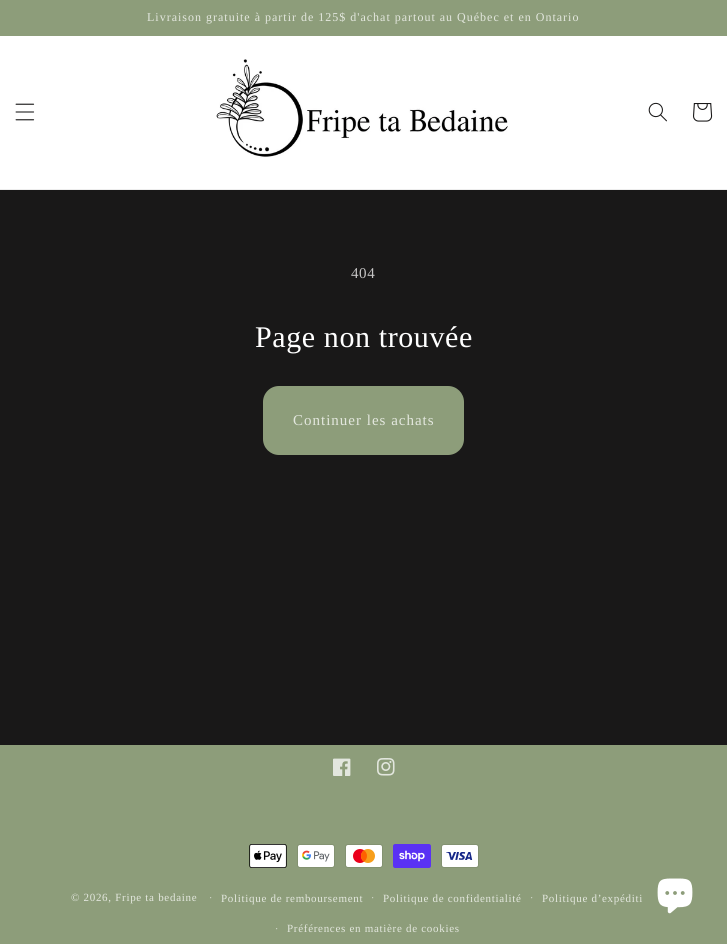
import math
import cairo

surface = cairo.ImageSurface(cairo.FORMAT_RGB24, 727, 944)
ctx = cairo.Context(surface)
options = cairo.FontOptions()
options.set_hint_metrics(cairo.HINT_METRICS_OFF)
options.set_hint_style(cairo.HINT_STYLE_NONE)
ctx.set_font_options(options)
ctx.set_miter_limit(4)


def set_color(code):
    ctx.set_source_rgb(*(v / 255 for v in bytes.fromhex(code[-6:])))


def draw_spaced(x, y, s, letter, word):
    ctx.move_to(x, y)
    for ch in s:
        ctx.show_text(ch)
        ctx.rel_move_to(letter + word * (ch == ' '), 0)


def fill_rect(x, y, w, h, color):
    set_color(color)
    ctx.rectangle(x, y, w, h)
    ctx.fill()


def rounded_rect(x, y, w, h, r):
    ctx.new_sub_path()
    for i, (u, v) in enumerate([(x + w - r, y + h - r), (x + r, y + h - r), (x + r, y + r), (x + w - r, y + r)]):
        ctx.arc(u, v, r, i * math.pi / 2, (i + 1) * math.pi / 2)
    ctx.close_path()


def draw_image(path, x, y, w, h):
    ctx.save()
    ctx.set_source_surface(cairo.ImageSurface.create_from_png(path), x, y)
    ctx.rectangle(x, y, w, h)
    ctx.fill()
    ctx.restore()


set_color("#191818")
ctx.paint()
fill_rect(0, 0, 727, 36, "#8d9d7a")
ctx.select_font_face("Liberation Serif")
ctx.set_font_size(12)
set_color("#e3e7de")
draw_spaced(147, 21, "Livraison gratuite à partir de 125$ d'achat partout au Québec et en Ontario", 1, 0)
fill_rect(0, 36, 727, 153, "#ffffff")
fill_rect(0, 189, 727, 1, "#ededed")
draw_image("assets/img1.png", 15, 103, 20, 18)
draw_image("assets/img2.png", 216, 59, 292, 99)
draw_image("assets/img3.png", 648, 102, 19, 20)
draw_image("assets/img4.png", 693, 103, 20, 19)
ctx.set_font_size(15)
set_color("#c6c5c5")
draw_spaced(351, 278, "404", 0.6, 0)
ctx.set_font_size(30)
set_color("#ffffff")
draw_spaced(255, 347, "Page non trouvée", 0.6, 0)
set_color("#8d9d7a")
rounded_rect(263, 386, 201, 69, 16)
ctx.fill()
ctx.set_font_size(15)
set_color("#e3e7de")
draw_spaced(293, 425, "Continuer les achats", 1, 0)
fill_rect(0, 745, 727, 199, "#8d9d7a")
draw_image("assets/img5.png", 333, 758, 18, 18)
draw_image("assets/img6.png", 377, 758, 18, 18)
draw_image("assets/img7.png", 249, 844, 38, 24)
draw_image("assets/img8.png", 297, 844, 38, 24)
draw_image("assets/img9.png", 345, 844, 38, 24)
draw_image("assets/img10.png", 393, 844, 38, 24)
draw_image("assets/img11.png", 441, 844, 38, 24)
ctx.set_font_size(11)
set_color("#e3e7de")
draw_spaced(71, 901, "© 2026, Fripe ta bedaine", 0.7, 0)
ctx.set_font_size(10)
draw_spaced(209, 901, "·", 0.7, 0)
ctx.set_font_size(11)
draw_spaced(221, 902, "Politique de remboursement", 0.7, 0)
ctx.set_font_size(10)
draw_spaced(371, 901, "·", 0.7, 0)
ctx.set_font_size(11)
draw_spaced(383, 902, "Politique de confidentialité", 0.7, 0)
ctx.set_font_size(10)
draw_spaced(530, 901, "·", 0.7, 0)
ctx.set_font_size(11)
draw_spaced(542, 902, "Politique d’expéditi", 0.7, 0)
ctx.set_font_size(10)
draw_spaced(275, 932, "·", 0.7, 0)
ctx.set_font_size(11)
draw_spaced(287, 932, "Préférences en matière de cookies", 0.7, 0)
draw_image("assets/img12.png", 657, 878, 36, 36)
surface.write_to_png("output.png")
